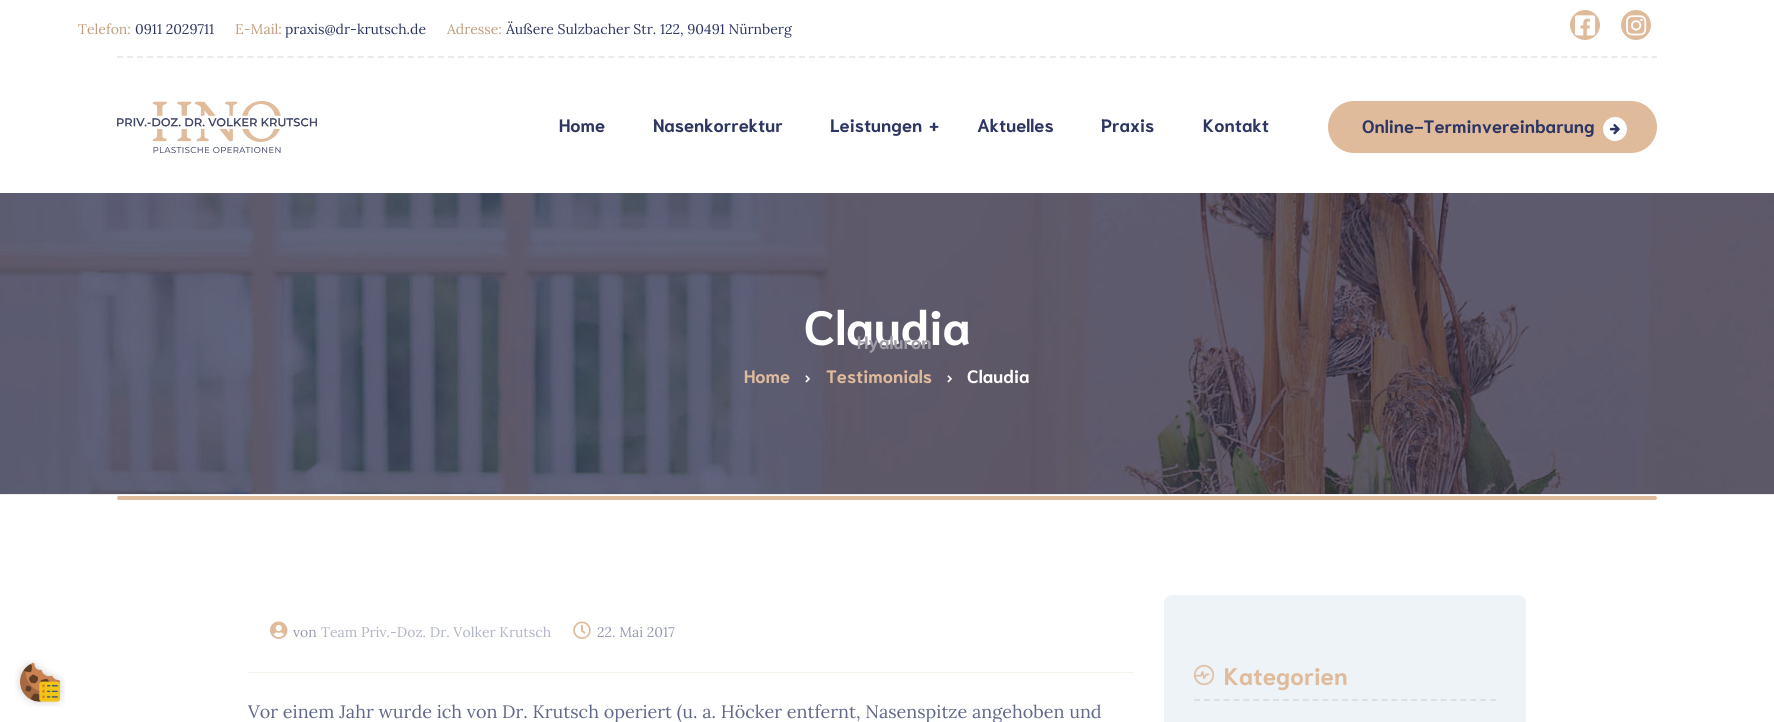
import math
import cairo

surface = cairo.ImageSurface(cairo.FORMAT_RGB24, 1774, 722)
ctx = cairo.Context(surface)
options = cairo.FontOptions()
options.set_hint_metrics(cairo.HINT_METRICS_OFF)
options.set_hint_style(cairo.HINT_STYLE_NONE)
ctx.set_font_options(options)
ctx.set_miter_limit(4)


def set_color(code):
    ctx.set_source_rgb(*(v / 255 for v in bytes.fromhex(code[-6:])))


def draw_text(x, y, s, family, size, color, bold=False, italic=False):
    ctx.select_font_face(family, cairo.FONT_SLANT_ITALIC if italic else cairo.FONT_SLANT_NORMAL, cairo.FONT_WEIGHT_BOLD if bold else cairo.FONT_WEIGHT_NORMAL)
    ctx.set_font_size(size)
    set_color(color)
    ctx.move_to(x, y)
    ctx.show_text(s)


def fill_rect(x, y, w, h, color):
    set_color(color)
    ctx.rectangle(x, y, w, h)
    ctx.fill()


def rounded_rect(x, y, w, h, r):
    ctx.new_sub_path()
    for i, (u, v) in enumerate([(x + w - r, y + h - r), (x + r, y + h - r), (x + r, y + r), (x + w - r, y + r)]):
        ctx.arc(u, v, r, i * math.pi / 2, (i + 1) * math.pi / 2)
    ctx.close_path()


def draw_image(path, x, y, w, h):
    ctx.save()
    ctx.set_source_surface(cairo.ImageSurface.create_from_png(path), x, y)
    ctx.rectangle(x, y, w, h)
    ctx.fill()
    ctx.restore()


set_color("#ffffff")
ctx.paint()
draw_text(78, 34, "Telefon:", "Lora", 14, "#c19d7e")
draw_text(135, 34, "0911 2029711", "Lora", 14, "#2d3663")
draw_text(235, 34, "E-Mail:", "Lora", 14, "#c19d7e")
draw_text(285, 34, "praxis@dr-krutsch.de", "Lora", 14, "#2d3663")
draw_text(447, 34, "Adresse:", "Lora", 14, "#c19d7e")
draw_text(506, 34, "Äußere Sulzbacher Str. 122, 90491 Nürnberg", "Lora", 14, "#2d3663")
set_color("#dfbb9c")
ctx.new_path()
ctx.arc(1585, 25, 15, 0, 2 * math.pi)
ctx.fill()
draw_image("assets/img1.png", 1575, 15, 21, 21)
ctx.arc(1636, 25, 15, 0, 2 * math.pi)
ctx.fill()
draw_image("assets/img2.png", 1626, 15, 21, 21)
ctx.new_path()
ctx.move_to(117, 57)
ctx.line_to(1657, 57)
set_color("#eaebef")
ctx.set_dash([6, 4.03])
ctx.stroke()
draw_image("assets/img3.png", 117, 101, 200, 52)
draw_text(559, 132, "Home", "Niramit", 18, "#2d3663", bold=True)
draw_text(653, 132, "Nasenkorrektur", "Niramit", 18, "#2d3663", bold=True)
draw_text(830, 132, "Leistungen", "Niramit", 18, "#2d3663", bold=True)
draw_text(929, 132, "+", "Niramit", 18, "#2d3663", bold=True)
draw_image("assets/img5.png", 0, 193, 1774, 301)
draw_text(804, 345, "Claudia", "Niramit", 48, "#ffffff", bold=True)
draw_text(857, 349, "Hyaluron", "Niramit", 18, "#9f9ca6", bold=True)
draw_text(977, 132, "Aktuelles", "Niramit", 18, "#2d3663", bold=True)
draw_text(1101, 132, "Praxis", "Niramit", 18, "#2d3663", bold=True)
draw_text(1203, 132, "Kontakt", "Niramit", 18, "#2d3663", bold=True)
set_color("#dfbb9c")
rounded_rect(1328, 101, 329, 52, 26)
ctx.fill()
draw_text(1362, 133, "Online-Terminvereinbarung", "Niramit", 18, "#2d3663", bold=True)
set_color("#ffffff")
ctx.new_path()
ctx.arc(1615, 129, 12, 0, 2 * math.pi)
ctx.fill()
draw_image("assets/img4.png", 1610, 124, 10, 11)
fill_rect(0, 494, 1774, 1, "#eeeeee")
draw_text(744, 383, "Home", "Niramit", 18, "#dfbb9c", bold=True)
draw_image("assets/img6.png", 805, 375, 5, 8)
draw_text(826, 383, "Testimonials", "Niramit", 18, "#dfbb9c", bold=True)
draw_image("assets/img7.png", 947, 375, 5, 8)
draw_text(967, 383, "Claudia", "Niramit", 18, "#ffffff", bold=True)
set_color("#dfbb9c")
rounded_rect(117, 496, 1540, 4, 2)
ctx.fill()
draw_image("assets/img8.png", 15, 660, 50, 47)
fill_rect(248, 672, 886, 1, "#f6f3ed")
draw_image("assets/img9.png", 270, 621, 18, 18)
draw_text(293, 637, "von", "Lora", 14, "#969bb1")
draw_text(321, 637, "Team Priv.-Doz. Dr. Volker Krutsch", "Lora", 14, "#b0b4c5")
draw_image("assets/img10.png", 573, 621, 18, 18)
draw_text(597, 637, "22. Mai 2017", "Lora", 14, "#969bb1")
draw_text(248, 718, "Vor einem Jahr wurde ich von Dr. Krutsch operiert (u. a. Höcker entfernt, Nasenspitze angehoben und", "Lora", 18, "#62688a")
set_color("#edf3f6")
rounded_rect(1164, 595, 362, 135, 8)
ctx.fill()
ctx.new_path()
ctx.move_to(1194, 700)
ctx.line_to(1496, 700)
set_color("#dae0e7")
ctx.set_dash([6, 3.87])
ctx.stroke()
draw_image("assets/img11.png", 1193, 664, 21, 21)
draw_text(1224, 685, "Kategorien", "Niramit", 24, "#dfbb9c", bold=True)
surface.write_to_png("output.png")
